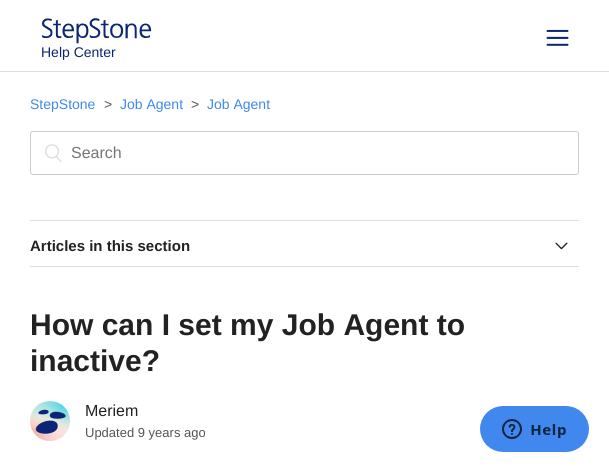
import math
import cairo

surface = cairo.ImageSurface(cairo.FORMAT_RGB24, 609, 466)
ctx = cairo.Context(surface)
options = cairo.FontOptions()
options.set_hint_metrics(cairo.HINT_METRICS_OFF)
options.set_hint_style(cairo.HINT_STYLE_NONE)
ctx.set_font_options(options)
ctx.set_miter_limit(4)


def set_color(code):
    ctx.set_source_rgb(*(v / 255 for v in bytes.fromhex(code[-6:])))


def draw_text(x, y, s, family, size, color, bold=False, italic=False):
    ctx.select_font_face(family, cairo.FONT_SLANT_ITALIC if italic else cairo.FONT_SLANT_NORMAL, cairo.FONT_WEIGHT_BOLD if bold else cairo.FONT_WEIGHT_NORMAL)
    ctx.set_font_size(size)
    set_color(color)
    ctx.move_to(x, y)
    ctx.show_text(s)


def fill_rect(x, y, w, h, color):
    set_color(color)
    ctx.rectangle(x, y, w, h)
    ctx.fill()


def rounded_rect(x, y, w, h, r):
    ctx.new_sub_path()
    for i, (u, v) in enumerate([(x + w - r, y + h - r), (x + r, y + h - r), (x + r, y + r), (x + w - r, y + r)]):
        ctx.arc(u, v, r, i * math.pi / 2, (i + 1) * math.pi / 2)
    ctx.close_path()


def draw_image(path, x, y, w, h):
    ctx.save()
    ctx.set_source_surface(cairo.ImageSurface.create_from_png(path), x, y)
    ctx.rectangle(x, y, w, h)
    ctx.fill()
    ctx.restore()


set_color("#ffffff")
ctx.paint()
draw_image("assets/img1.png", 546, 29, 23, 17)
draw_image("assets/img2.png", 42, 18, 110, 26)
draw_text(41, 57, "Help Center", "Liberation Sans", 14, "#0c2577")
fill_rect(0, 71, 609, 1, "#dcdfe2")
draw_text(30, 109, "StepStone", "Liberation Sans", 14, "#4088ee")
draw_text(104, 109, ">", "Liberation Sans", 14, "#555555")
draw_text(120, 109, "Job Agent", "Liberation Sans", 14, "#4088ee")
draw_text(191, 109, ">", "Liberation Sans", 14, "#555555")
draw_text(207, 109, "Job Agent", "Liberation Sans", 14, "#4088ee")
rounded_rect(30.5, 131.5, 548, 43, 2.5)
set_color("#cccccc")
ctx.set_line_width(1)
ctx.stroke()
draw_image("assets/img3.png", 45, 144, 17, 18)
draw_text(71, 158, "Search", "Liberation Sans", 16, "#757575")
fill_rect(30, 220, 549, 1, "#dddddd")
fill_rect(30, 266, 549, 1, "#dddddd")
draw_text(30, 251, "Articles in this section", "Liberation Sans", 15, "#222222", bold=True)
draw_image("assets/img4.png", 555, 242, 13, 8)
draw_text(30, 335, "How can I set my Job Agent to", "Liberation Sans", 30, "#222222", bold=True)
draw_text(30, 371, "inactive?", "Liberation Sans", 30, "#222222", bold=True)
draw_image("assets/img5.png", 30, 401, 40, 40)
draw_text(85, 416, "Meriem", "Liberation Sans", 16, "#222222")
draw_text(85, 437, "Updated 9 years ago", "Liberation Sans", 13, "#555555")
draw_image("assets/img6.png", 480, 406, 109, 46)
surface.write_to_png("output.png")
